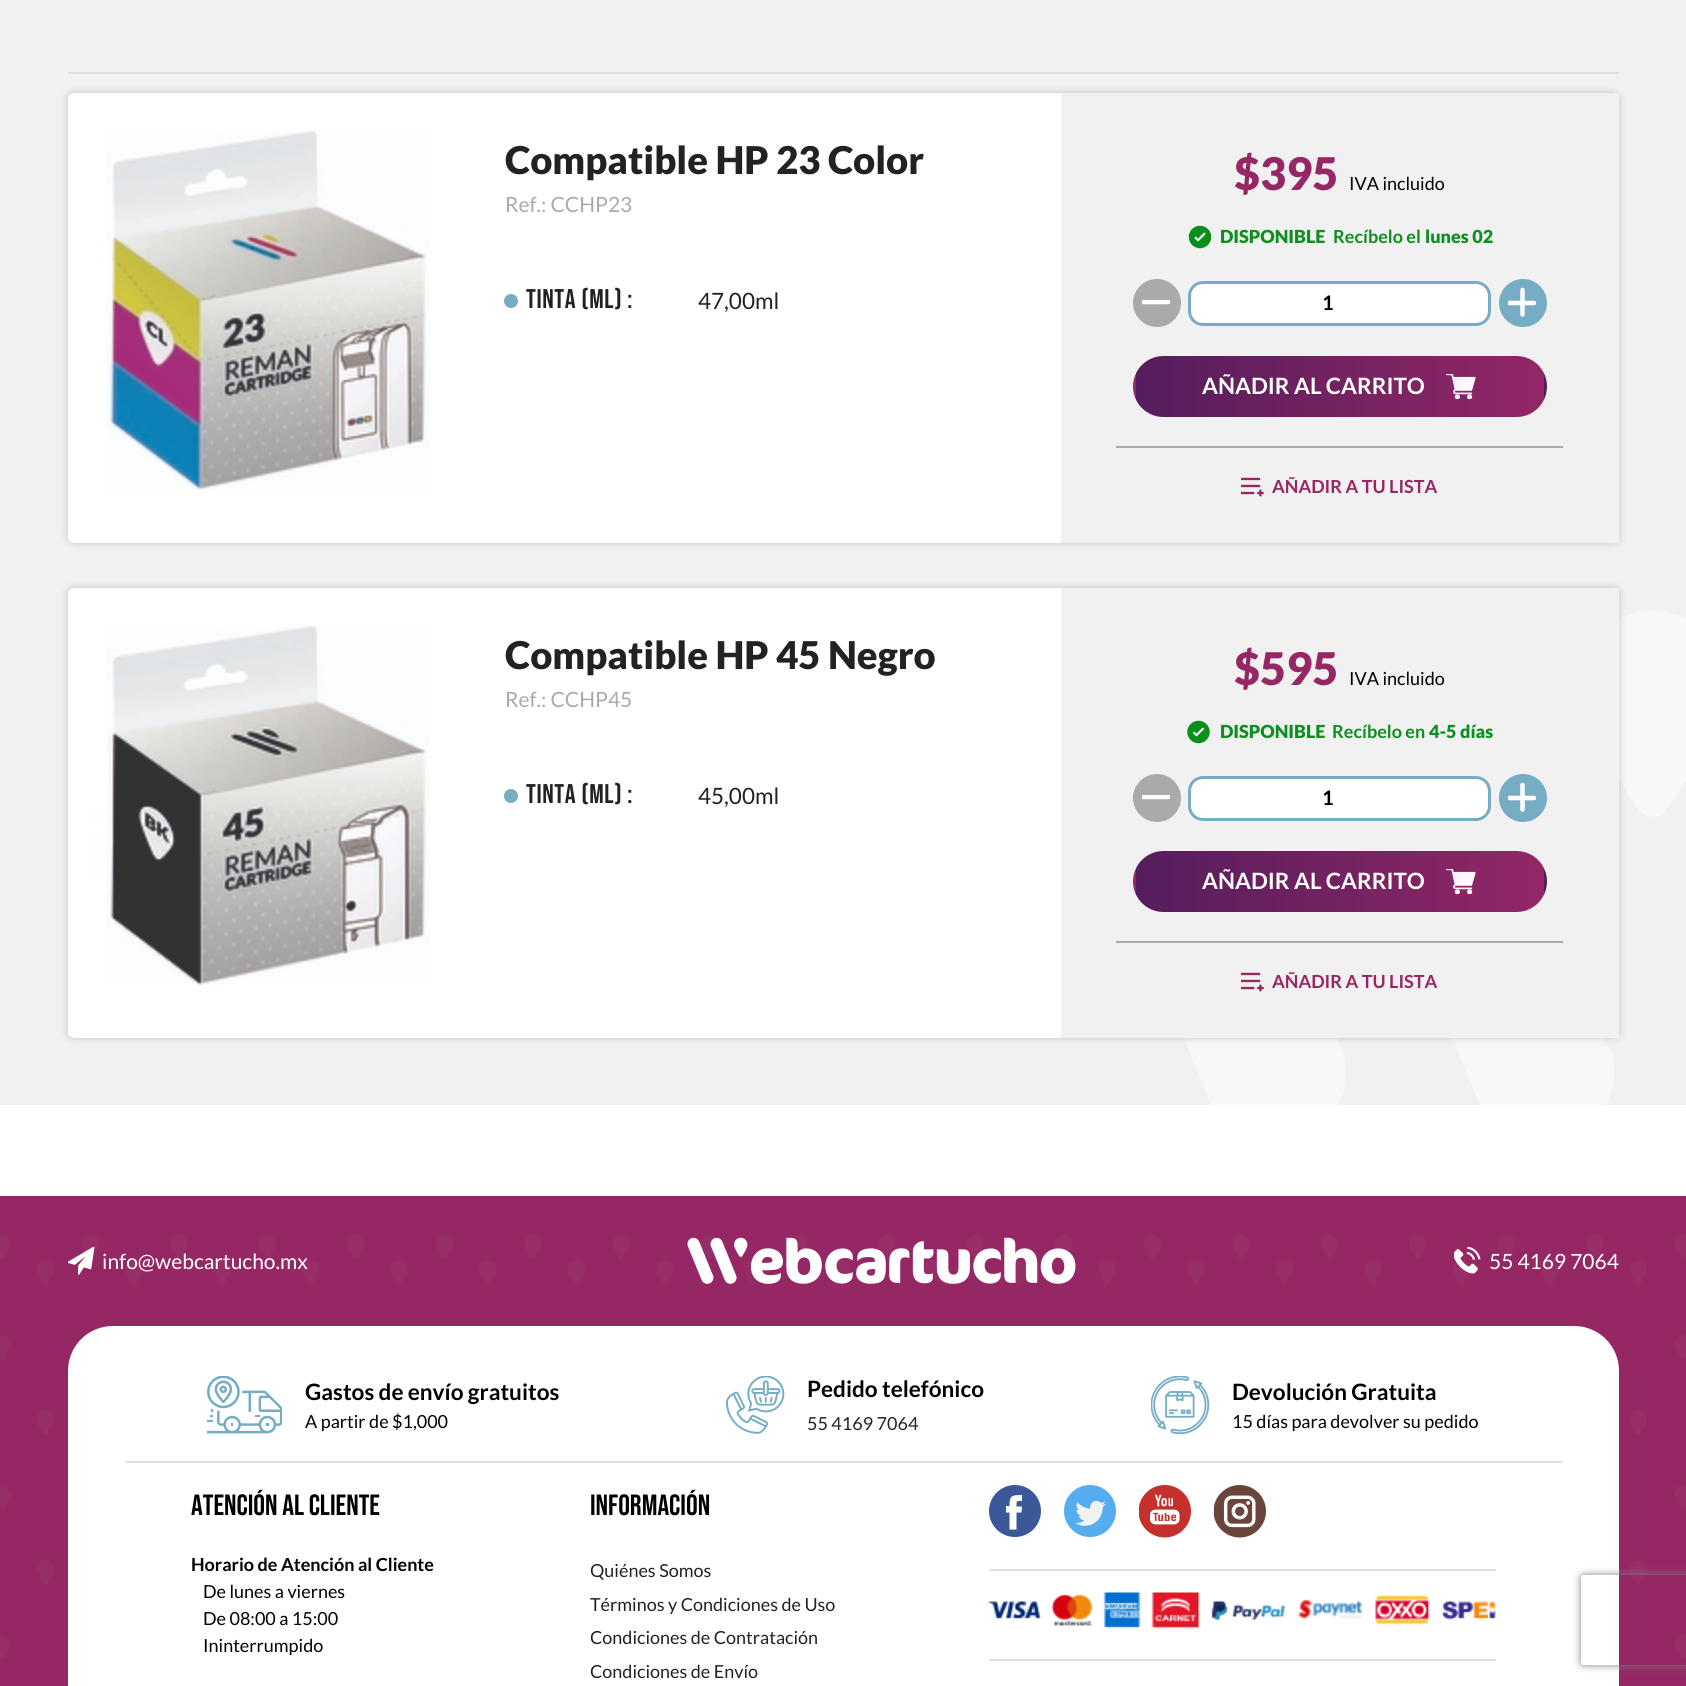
import math
import cairo

surface = cairo.ImageSurface(cairo.FORMAT_RGB24, 1686, 1686)
ctx = cairo.Context(surface)
options = cairo.FontOptions()
options.set_hint_metrics(cairo.HINT_METRICS_OFF)
options.set_hint_style(cairo.HINT_STYLE_NONE)
ctx.set_font_options(options)
ctx.set_miter_limit(4)


def set_color(code):
    ctx.set_source_rgb(*(v / 255 for v in bytes.fromhex(code[-6:])))


def draw_text(x, y, s, family, size, color, bold=False, italic=False):
    ctx.select_font_face(family, cairo.FONT_SLANT_ITALIC if italic else cairo.FONT_SLANT_NORMAL, cairo.FONT_WEIGHT_BOLD if bold else cairo.FONT_WEIGHT_NORMAL)
    ctx.set_font_size(size)
    set_color(color)
    ctx.move_to(x, y)
    ctx.show_text(s)


def draw_spaced(x, y, s, letter, word):
    ctx.move_to(x, y)
    for ch in s:
        ctx.show_text(ch)
        ctx.rel_move_to(letter + word * (ch == ' '), 0)


def fill_rect(x, y, w, h, color):
    set_color(color)
    ctx.rectangle(x, y, w, h)
    ctx.fill()


def rounded_rect(x, y, w, h, r):
    ctx.new_sub_path()
    for i, (u, v) in enumerate([(x + w - r, y + h - r), (x + r, y + h - r), (x + r, y + r), (x + w - r, y + r)]):
        ctx.arc(u, v, r, i * math.pi / 2, (i + 1) * math.pi / 2)
    ctx.close_path()


def draw_shadow(x, y, w, h, r, blur, alpha):
    ctx.push_group_with_content(cairo.CONTENT_ALPHA)
    ctx.set_operator(cairo.OPERATOR_SOURCE)
    for i in range(15, -16, -2):
        e = blur * i / 6
        if min(w, h) + 2 * e > 0:
            ctx.set_source_rgba(0, 0, 0, alpha * math.erfc((i - 1) / 8.5) / 2)
            rounded_rect(x - e, y - e, w + 2 * e, h + 2 * e, max(0, min(r + e + blur * .6, min(w, h) / 2 + e)))
            ctx.fill()
    ctx.mask(ctx.pop_group())


def draw_image(path, x, y, w, h):
    ctx.save()
    ctx.set_source_surface(cairo.ImageSurface.create_from_png(path), x, y)
    ctx.rectangle(x, y, w, h)
    ctx.fill()
    ctx.restore()


set_color("#ffffff")
ctx.paint()
draw_image("assets/img1.png", 0, 0, 1686, 1105)
fill_rect(68, 72, 1551, 2, "#dfdfdf")
set_color("#000000")
draw_shadow(68, 93, 1551, 450, 6, 4, 0.2)
set_color("#ffffff")
rounded_rect(68, 93, 1551, 450, 6)
ctx.fill()
draw_image("assets/img2.png", 106, 130, 324, 360)
draw_text(505, 174, "Compatible HP 23 Color", "Lato Black", 38.25, "#222222")
draw_text(505, 212, "Ref.: CCHP23", "Lato", 21, "#aaaaaa")
set_color("#76adc5")
ctx.new_path()
ctx.arc(511, 301, 7, 0, 2 * math.pi)
ctx.fill()
ctx.select_font_face("Bebas Neue")
ctx.set_font_size(27)
set_color("#222222")
draw_spaced(526, 308, "Tinta (ml) :", 0.6, 0)
draw_text(698, 309, "47,00ml", "Lato", 22.5, "#222222")
fill_rect(1061, 93, 558, 450, "#f1f1f1")
draw_text(1234, 190, "$395", "Lato Black", 45, "#962765")
draw_text(1349, 190, "IVA incluido", "Lato", 18, "#000000")
draw_image("assets/img3.png", 1188, 225, 24, 24)
draw_text(1220, 243, "DISPONIBLE", "Lato Black", 18, "#0c8f1e")
draw_text(1333, 243, "Recíbelo el", "Lato", 18, "#0c8f1e", bold=True)
draw_text(1425, 243, "lunes 02", "Lato Black", 18, "#0c8f1e")
set_color("#aaaaaa")
ctx.new_path()
ctx.arc(1157, 303, 24, 0, 2 * math.pi)
ctx.fill()
ctx.save()
ctx.rectangle(1142, 300, 30, 5)
ctx.clip()
ctx.new_path()
ctx.move_to(1143.5, 302)
ctx.line_to(1168, 302)
set_color("#ffffff")
ctx.set_line_width(4.5)
ctx.set_line_cap(cairo.LINE_CAP_ROUND)
ctx.stroke()
ctx.restore()
set_color("#ffffff")
rounded_rect(1189.5, 282.5, 300, 42, 13.5)
ctx.fill_preserve()
set_color("#76adc5")
ctx.set_line_width(3)
ctx.stroke()
draw_text(1322, 310, "1", "Lato", 20, "#000000", bold=True)
set_color("#76adc5")
ctx.new_path()
ctx.arc(1523, 303, 24, 0, 2 * math.pi)
ctx.fill()
ctx.save()
ctx.rectangle(1508, 288, 28, 29)
ctx.clip()
ctx.new_path()
ctx.move_to(1509.5, 303)
ctx.line_to(1534, 303)
set_color("#ffffff")
ctx.set_line_width(4.5)
ctx.set_line_cap(cairo.LINE_CAP_ROUND)
ctx.stroke()
ctx.restore()
ctx.new_path()
ctx.move_to(1522.5, 290)
ctx.line_to(1522.5, 314.5)
set_color("#ffffff")
ctx.set_line_width(4.5)
ctx.set_line_cap(cairo.LINE_CAP_ROUND)
ctx.stroke()
ctx.save()
rounded_rect(1133, 356, 414, 61, 30.5)
ctx.clip()
gradient = cairo.LinearGradient(728, 386, 1136, 386)
gradient.add_color_stop_rgba(0, 0.333, 0.114, 0.365, 1)
gradient.add_color_stop_rgba(1, 0.576, 0.153, 0.396, 1)
ctx.set_source(gradient)
ctx.rectangle(1133, 373, 3, 27)
ctx.fill()
gradient = cairo.LinearGradient(1136, 386, 1544, 386)
gradient.add_color_stop_rgba(0, 0.333, 0.114, 0.365, 1)
gradient.add_color_stop_rgba(1, 0.576, 0.153, 0.396, 1)
ctx.set_source(gradient)
ctx.rectangle(1136, 356, 408, 61)
ctx.fill()
gradient = cairo.LinearGradient(1544, 386, 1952, 386)
gradient.add_color_stop_rgba(0, 0.333, 0.114, 0.365, 1)
gradient.add_color_stop_rgba(1, 0.576, 0.153, 0.396, 1)
ctx.set_source(gradient)
ctx.rectangle(1544, 373, 3, 27)
ctx.fill()
ctx.restore()
draw_text(1202, 394, "AÑADIR AL CARRITO", "Lato", 22.5, "#ffffff", bold=True)
draw_image("assets/img4.png", 1446, 374, 30, 25)
fill_rect(1116, 446, 447, 2, "#aaaaaa")
draw_image("assets/img5.png", 1241, 477, 23, 20)
draw_text(1272, 493, "AÑADIR A TU LISTA", "Lato", 18, "#962765", bold=True)
set_color("#000000")
draw_shadow(68, 588, 1551, 450, 6, 4, 0.2)
set_color("#ffffff")
rounded_rect(68, 588, 1551, 450, 6)
ctx.fill()
draw_image("assets/img6.png", 106, 625, 324, 360)
draw_text(505, 669, "Compatible HP 45 Negro", "Lato Black", 38.25, "#222222")
draw_text(505, 707, "Ref.: CCHP45", "Lato", 21, "#aaaaaa")
set_color("#76adc5")
ctx.new_path()
ctx.arc(511, 796, 7, 0, 2 * math.pi)
ctx.fill()
ctx.select_font_face("Bebas Neue")
ctx.set_font_size(27)
set_color("#222222")
draw_spaced(526, 803, "Tinta (ml) :", 0.6, 0)
draw_text(698, 804, "45,00ml", "Lato", 22.5, "#222222")
fill_rect(1061, 588, 558, 450, "#f1f1f1")
draw_text(1234, 685, "$595", "Lato Black", 45, "#962765")
draw_text(1349, 685, "IVA incluido", "Lato", 18, "#000000")
draw_image("assets/img7.png", 1187, 720, 23, 24)
draw_text(1220, 738, "DISPONIBLE", "Lato Black", 18, "#0c8f1e")
draw_text(1332, 738, "Recíbelo en", "Lato", 18, "#0c8f1e", bold=True)
draw_text(1429, 738, "4-5 días", "Lato Black", 18, "#0c8f1e")
set_color("#aaaaaa")
ctx.new_path()
ctx.arc(1157, 798, 24, 0, 2 * math.pi)
ctx.fill()
ctx.save()
ctx.rectangle(1142, 795, 30, 5)
ctx.clip()
ctx.new_path()
ctx.move_to(1143.5, 797)
ctx.line_to(1168, 797)
set_color("#ffffff")
ctx.stroke()
ctx.restore()
set_color("#ffffff")
rounded_rect(1189.5, 777.5, 300, 42, 13.5)
ctx.fill_preserve()
set_color("#76adc5")
ctx.set_line_width(3)
ctx.set_line_cap(cairo.LINE_CAP_BUTT)
ctx.stroke()
draw_text(1322, 805, "1", "Lato", 20, "#000000", bold=True)
set_color("#76adc5")
ctx.new_path()
ctx.arc(1523, 798, 24, 0, 2 * math.pi)
ctx.fill()
ctx.save()
ctx.rectangle(1508, 783, 28, 29)
ctx.clip()
ctx.new_path()
ctx.move_to(1509.5, 798)
ctx.line_to(1534, 798)
set_color("#ffffff")
ctx.set_line_width(4.5)
ctx.set_line_cap(cairo.LINE_CAP_ROUND)
ctx.stroke()
ctx.restore()
ctx.new_path()
ctx.move_to(1522.5, 785)
ctx.line_to(1522.5, 809.5)
set_color("#ffffff")
ctx.set_line_width(4.5)
ctx.set_line_cap(cairo.LINE_CAP_ROUND)
ctx.stroke()
ctx.save()
rounded_rect(1133, 851, 414, 61, 30.5)
ctx.clip()
gradient = cairo.LinearGradient(728, 881, 1136, 881)
gradient.add_color_stop_rgba(0, 0.333, 0.114, 0.365, 1)
gradient.add_color_stop_rgba(1, 0.576, 0.153, 0.396, 1)
ctx.set_source(gradient)
ctx.rectangle(1133, 868, 3, 27)
ctx.fill()
gradient = cairo.LinearGradient(1136, 881, 1544, 881)
gradient.add_color_stop_rgba(0, 0.333, 0.114, 0.365, 1)
gradient.add_color_stop_rgba(1, 0.576, 0.153, 0.396, 1)
ctx.set_source(gradient)
ctx.rectangle(1136, 851, 408, 61)
ctx.fill()
gradient = cairo.LinearGradient(1544, 881, 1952, 881)
gradient.add_color_stop_rgba(0, 0.333, 0.114, 0.365, 1)
gradient.add_color_stop_rgba(1, 0.576, 0.153, 0.396, 1)
ctx.set_source(gradient)
ctx.rectangle(1544, 868, 3, 27)
ctx.fill()
ctx.restore()
draw_text(1202, 889, "AÑADIR AL CARRITO", "Lato", 22.5, "#ffffff", bold=True)
draw_image("assets/img4.png", 1446, 869, 30, 25)
fill_rect(1116, 941, 447, 2, "#aaaaaa")
draw_image("assets/img5.png", 1241, 972, 23, 20)
draw_text(1272, 988, "AÑADIR A TU LISTA", "Lato", 18, "#962765", bold=True)
fill_rect(0, 1196, 1686, 490, "#962765")
draw_image("assets/img8.png", 0, 1235, 1686, 424)
draw_image("assets/img9.png", 68, 1247, 27, 28)
draw_text(102, 1269, "info@webcartucho.mx", "Lato", 21, "#ffffff")
draw_image("assets/img10.png", 687, 1237, 389, 47)
draw_image("assets/img11.png", 1454, 1247, 27, 27)
draw_text(1489, 1269, "55 4169 7064", "Lato", 21, "#ffffff")
ctx.new_path()
ctx.move_to(113, 1326)
ctx.line_to(1574, 1326)
ctx.curve_to(1599, 1326, 1619, 1346, 1619, 1371)
ctx.line_to(1619, 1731)
ctx.line_to(68, 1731)
ctx.line_to(68, 1371)
ctx.curve_to(68, 1346, 88, 1326, 113, 1326)
ctx.close_path()
ctx.fill()
fill_rect(125, 1461, 1438, 2, "#dfdfdf")
draw_image("assets/img12.png", 207, 1376, 75, 58)
draw_text(305, 1400, "Gastos de envío gratuitos", "Lato", 22.5, "#000000", bold=True)
draw_text(305, 1428, "A partir de $1,000", "Lato", 18, "#000000")
draw_image("assets/img13.png", 726, 1376, 59, 58)
draw_text(807, 1397, "Pedido telefónico", "Lato", 22.5, "#000000", bold=True)
draw_text(807, 1430, "55 4169 7064", "Lato", 18, "#212529")
draw_image("assets/img14.png", 1151, 1376, 59, 58)
draw_text(1232, 1400, "Devolución Gratuita", "Lato", 22.5, "#000000", bold=True)
draw_text(1232, 1428, "15 días para devolver su pedido", "Lato", 18, "#000000")
draw_text(191, 1515, "Atención al cliente", "Bebas Neue", 29.25, "#000000")
draw_text(191, 1571, "Horario de Atención al Cliente", "Lato", 18, "#000000", bold=True)
draw_text(203, 1598, "De lunes a viernes", "Lato", 18, "#000000")
draw_text(203, 1625, "De 08:00 a 15:00", "Lato", 18, "#000000")
draw_text(203, 1652, "Ininterrumpido", "Lato", 18, "#000000")
draw_text(590, 1515, "Información", "Bebas Neue", 29.25, "#000000")
draw_text(590, 1577, "Quiénes Somos", "Lato", 18, "#222222")
draw_text(590, 1611, "Términos y Condiciones de Uso", "Lato", 18, "#222222")
draw_text(590, 1644, "Condiciones de Contratación", "Lato", 18, "#222222")
draw_text(590, 1678, "Condiciones de Envío", "Lato", 18, "#222222")
fill_rect(989, 1569, 507, 2, "#dfdfdf")
set_color("#3b5998")
ctx.new_path()
ctx.arc(1015, 1511, 26, 0, 2 * math.pi)
ctx.fill()
set_color("#ffffff")
ctx.new_path()
ctx.move_to(1021.5, 1512.5)
ctx.line_to(1016.5, 1512.5)
ctx.line_to(1016.5, 1529.5)
ctx.line_to(1009.5, 1529.5)
ctx.line_to(1009.5, 1512.5)
ctx.line_to(1006, 1512.5)
ctx.line_to(1006, 1506)
ctx.line_to(1009.5, 1506)
ctx.curve_to(1009.5, 1495.5, 1011.5, 1495, 1022, 1495)
ctx.line_to(1022, 1501)
ctx.curve_to(1016, 1501, 1016.5, 1500.5, 1016.5, 1506.5)
ctx.line_to(1022, 1506.5)
ctx.close_path()
ctx.fill()
draw_image("assets/img15.png", 1064, 1485, 52, 52)
draw_image("assets/img16.png", 1139, 1485, 52, 53)
draw_image("assets/img17.png", 1214, 1485, 52, 53)
fill_rect(989, 1659, 507, 2, "#dfdfdf")
draw_image("assets/img18.png", 988, 1592, 508, 37)
ctx.save()
ctx.set_fill_rule(cairo.FILL_RULE_EVEN_ODD)
ctx.new_path()
ctx.move_to(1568, 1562)
ctx.line_to(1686, 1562)
ctx.line_to(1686, 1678)
ctx.line_to(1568, 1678)
ctx.close_path()
ctx.move_to(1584, 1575)
ctx.line_to(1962, 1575)
ctx.curve_to(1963.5, 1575, 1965, 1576.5, 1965, 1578)
ctx.line_to(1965, 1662)
ctx.curve_to(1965, 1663.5, 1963.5, 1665, 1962, 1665)
ctx.line_to(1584, 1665)
ctx.curve_to(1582.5, 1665, 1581, 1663.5, 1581, 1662)
ctx.line_to(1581, 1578)
ctx.curve_to(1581, 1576.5, 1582.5, 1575, 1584, 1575)
ctx.close_path()
ctx.clip()
set_color("#808080")
draw_shadow(1581, 1575, 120, 90, 3, 4, 1)
ctx.restore()
surface.write_to_png("output.png")
